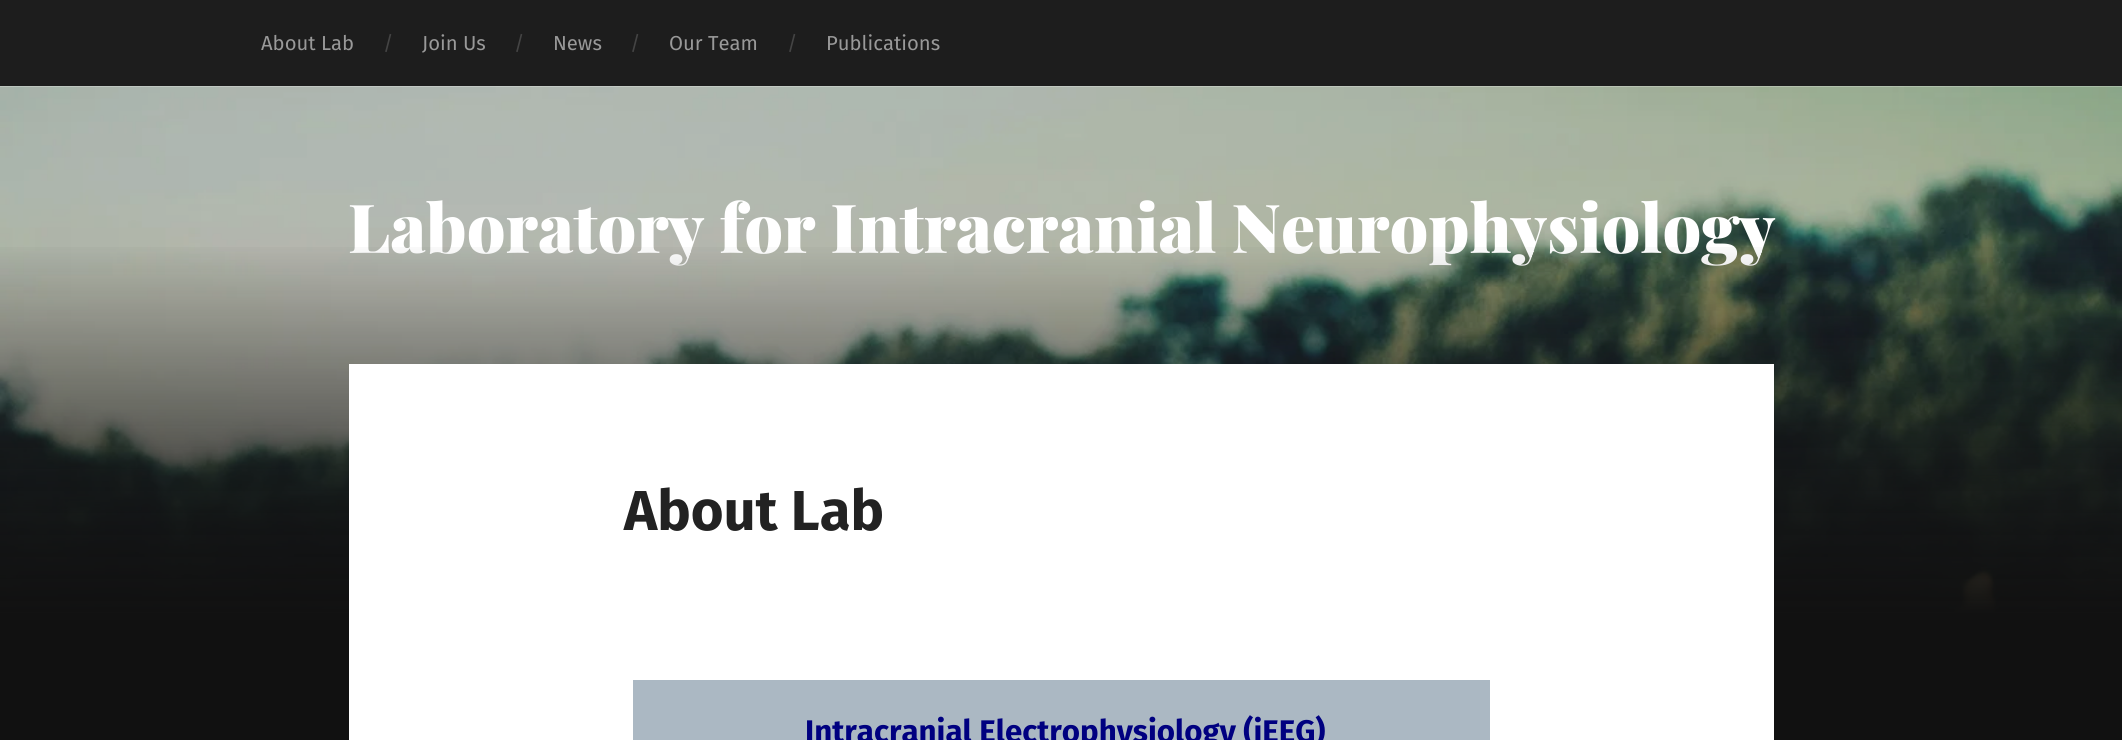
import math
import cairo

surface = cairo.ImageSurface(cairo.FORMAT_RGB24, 2122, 740)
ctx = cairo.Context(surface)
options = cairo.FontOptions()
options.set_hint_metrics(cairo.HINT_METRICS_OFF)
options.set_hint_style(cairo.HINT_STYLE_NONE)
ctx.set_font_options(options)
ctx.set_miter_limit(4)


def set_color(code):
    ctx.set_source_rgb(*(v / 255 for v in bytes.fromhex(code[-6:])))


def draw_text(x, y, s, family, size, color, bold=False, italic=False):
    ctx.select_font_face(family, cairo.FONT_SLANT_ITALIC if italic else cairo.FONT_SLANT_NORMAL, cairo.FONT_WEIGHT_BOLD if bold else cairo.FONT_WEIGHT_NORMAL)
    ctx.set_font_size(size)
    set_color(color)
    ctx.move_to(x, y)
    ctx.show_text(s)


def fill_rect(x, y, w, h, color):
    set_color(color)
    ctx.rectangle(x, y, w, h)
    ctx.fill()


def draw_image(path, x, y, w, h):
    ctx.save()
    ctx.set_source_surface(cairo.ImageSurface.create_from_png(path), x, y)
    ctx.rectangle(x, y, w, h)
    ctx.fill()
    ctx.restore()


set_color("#ffffff")
ctx.paint()
fill_rect(0, 0, 2122, 86, "#1d1d1d")
draw_text(261, 50, "About Lab", "Fira Sans", 20.25, "#999999")
draw_text(383, 50, "/", "Fira Sans", 20, "#444444")
draw_text(422, 50, "Join Us", "Fira Sans", 20.25, "#999999")
draw_text(514, 50, "/", "Fira Sans", 20, "#444444")
draw_text(553, 50, "News", "Fira Sans", 20.25, "#999999")
draw_text(630, 50, "/", "Fira Sans", 20, "#444444")
draw_text(669, 50, "Our Team", "Fira Sans", 20.25, "#999999")
draw_text(787, 50, "/", "Fira Sans", 20, "#444444")
draw_text(826, 50, "Publications", "Fira Sans", 20.25, "#999999")
draw_image("assets/img1.png", 0, 86, 2122, 526)
draw_text(348, 253, "Laboratory for Intracranial Neurophysiology", "Playfair Display Black", 67.5, "#ffffff")
gradient = cairo.LinearGradient(1061, 239, 1061, 614)
gradient.add_color_stop_rgba(0, 0.067, 0.067, 0.067, 0)
gradient.add_color_stop_rgba(1, 0.067, 0.067, 0.067, 1)
ctx.set_source(gradient)
ctx.rectangle(0, 247, 2122, 367)
ctx.fill()
fill_rect(0, 614, 2122, 126, "#111111")
fill_rect(349, 364, 1425, 376, "#ffffff")
draw_text(624, 530, "About Lab", "Fira Sans", 56.25, "#222222", bold=True)
fill_rect(633, 680, 857, 60, "#abb8c3")
draw_text(805, 742, "Intracranial Electrophysiology (iEEG)", "Fira Sans", 31.25, "#000080", bold=True)
surface.write_to_png("output.png")
